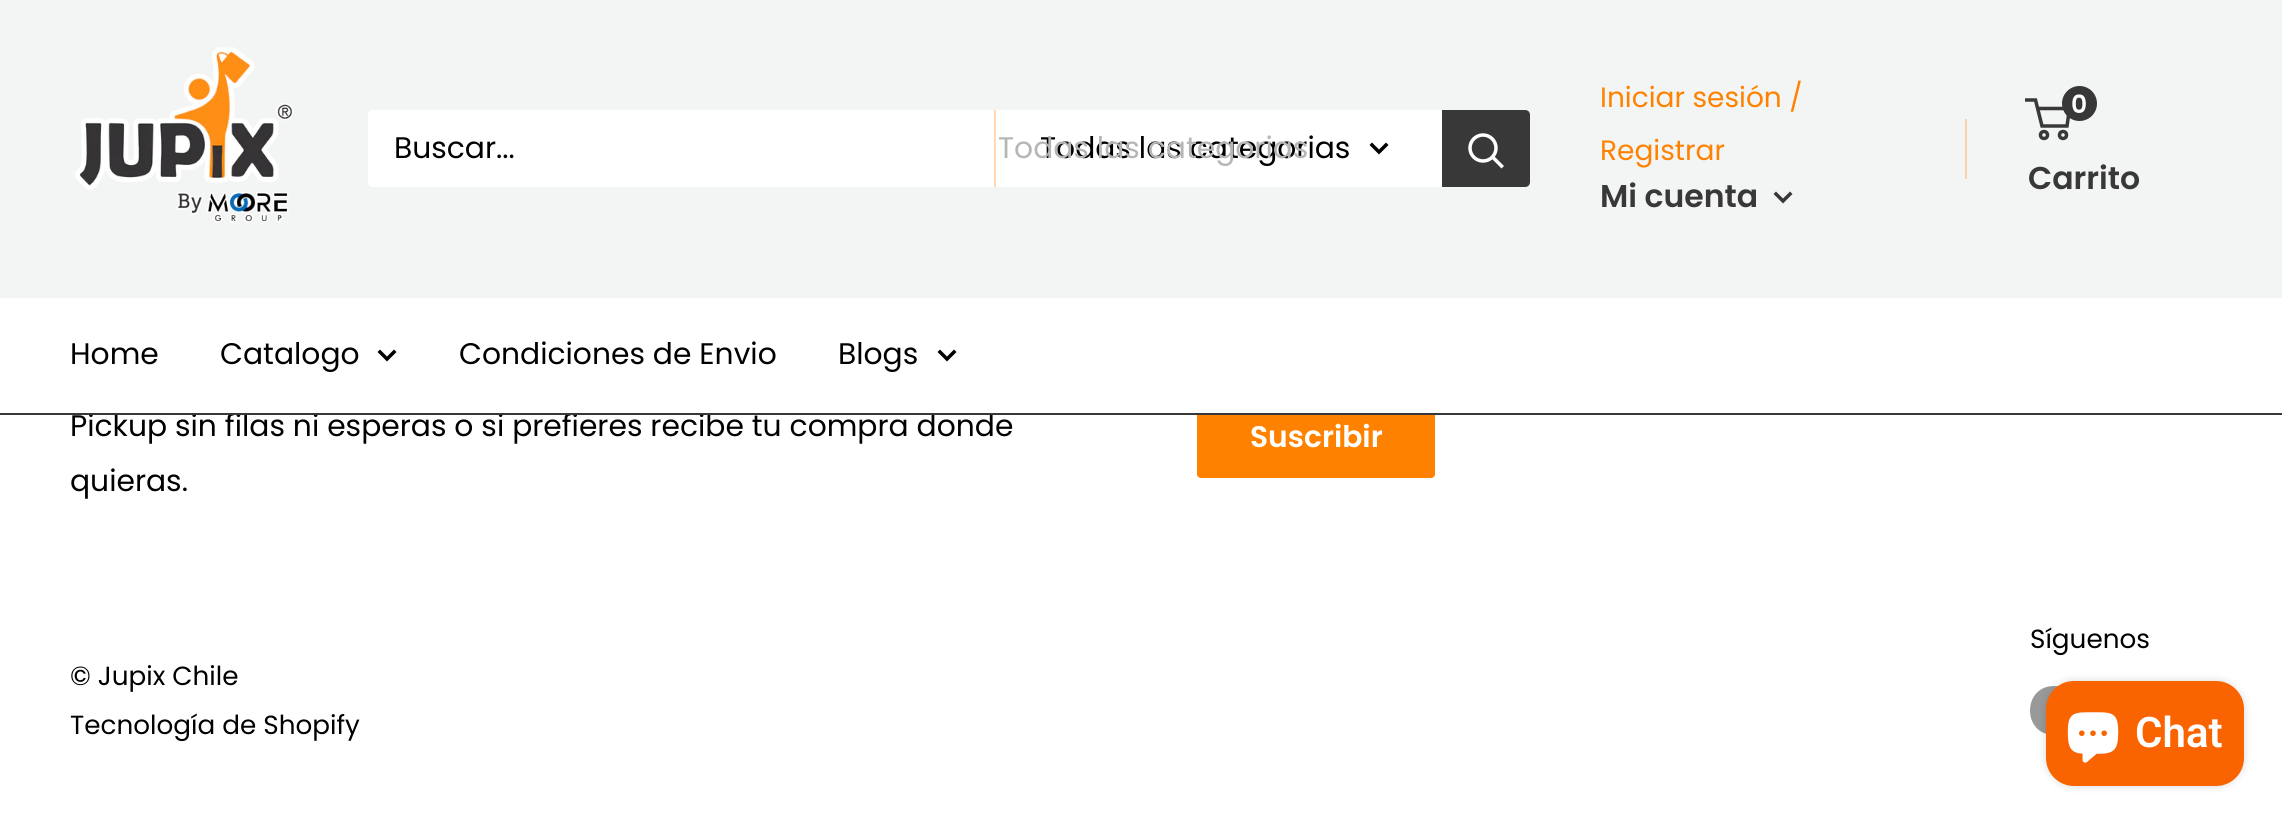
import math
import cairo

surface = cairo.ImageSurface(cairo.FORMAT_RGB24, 2282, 821)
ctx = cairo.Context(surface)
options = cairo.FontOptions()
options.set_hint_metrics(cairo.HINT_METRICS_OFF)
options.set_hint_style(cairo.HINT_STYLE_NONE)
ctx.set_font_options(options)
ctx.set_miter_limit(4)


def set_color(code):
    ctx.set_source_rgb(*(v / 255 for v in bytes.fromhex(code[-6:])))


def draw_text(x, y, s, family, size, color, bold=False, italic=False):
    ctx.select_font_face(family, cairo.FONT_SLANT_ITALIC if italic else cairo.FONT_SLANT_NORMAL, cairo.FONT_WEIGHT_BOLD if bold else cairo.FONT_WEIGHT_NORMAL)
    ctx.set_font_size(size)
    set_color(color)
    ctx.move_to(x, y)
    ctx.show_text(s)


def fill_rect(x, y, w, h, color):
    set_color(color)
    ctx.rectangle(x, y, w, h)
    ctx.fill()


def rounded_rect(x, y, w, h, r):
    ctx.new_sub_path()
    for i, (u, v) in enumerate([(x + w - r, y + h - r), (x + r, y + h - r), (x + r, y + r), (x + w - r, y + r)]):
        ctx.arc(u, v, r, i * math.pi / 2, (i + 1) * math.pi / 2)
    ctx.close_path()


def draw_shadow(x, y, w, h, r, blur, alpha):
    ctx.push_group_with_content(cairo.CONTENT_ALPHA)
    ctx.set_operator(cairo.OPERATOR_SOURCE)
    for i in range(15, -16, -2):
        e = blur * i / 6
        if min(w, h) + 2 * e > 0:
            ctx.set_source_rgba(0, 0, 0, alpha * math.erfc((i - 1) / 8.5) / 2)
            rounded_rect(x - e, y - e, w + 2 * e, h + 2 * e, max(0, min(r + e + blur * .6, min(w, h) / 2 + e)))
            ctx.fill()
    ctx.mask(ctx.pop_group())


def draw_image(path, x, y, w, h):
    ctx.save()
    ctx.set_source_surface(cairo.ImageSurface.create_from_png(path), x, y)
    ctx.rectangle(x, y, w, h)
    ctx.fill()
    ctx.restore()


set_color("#ffffff")
ctx.paint()
fill_rect(0, 0, 2282, 298, "#f3f4f4")
draw_image("assets/img1.png", 75, 47, 219, 176)
set_color("#ffffff")
rounded_rect(368, 110, 1162, 77, 5)
ctx.fill()
draw_text(394, 158, "Buscar...", "Poppins", 29.75, "#000000")
fill_rect(994, 110, 2, 77, "#ffd9b3")
draw_text(1040, 158, "Todas las categorias", "Poppins", 29.75, "#000000")
draw_text(998, 158, "Todas las categorias", "Poppins", 29.75, "#b6b6b6")
ctx.new_path()
ctx.move_to(1386, 145)
ctx.line_to(1379, 152)
ctx.line_to(1372, 145)
set_color("#000000")
ctx.set_line_width(3.5)
ctx.set_line_cap(cairo.LINE_CAP_SQUARE)
ctx.stroke()
set_color("#383838")
ctx.new_path()
ctx.move_to(1442, 110)
ctx.line_to(1525, 110)
ctx.curve_to(1528, 110, 1530, 112, 1530, 115)
ctx.line_to(1530, 182)
ctx.curve_to(1530, 185, 1528, 187, 1525, 187)
ctx.line_to(1442, 187)
ctx.close_path()
ctx.fill()
ctx.new_path()
ctx.move_to(1501.5, 166)
ctx.line_to(1493, 157.5)
set_color("#ffffff")
ctx.stroke()
ctx.arc(1483, 148, 13, 0, 2 * math.pi)
ctx.set_line_cap(cairo.LINE_CAP_BUTT)
ctx.stroke()
draw_text(1600, 107, "Iniciar sesión /", "Poppins", 28, "#ff8100")
draw_text(1600, 160, "Registrar", "Poppins", 28, "#ff8100")
fill_rect(1965, 119, 2, 60, "#f7d2ab")
draw_text(1600, 207, "Mi cuenta", "Poppins SemiBold", 31.5, "#383838")
ctx.new_path()
ctx.move_to(1790, 194)
ctx.line_to(1783, 201)
ctx.line_to(1776, 194)
ctx.set_line_cap(cairo.LINE_CAP_SQUARE)
ctx.stroke()
ctx.arc(2044, 135, 3.5, 0, 2 * math.pi)
ctx.set_line_cap(cairo.LINE_CAP_BUTT)
ctx.stroke()
ctx.arc(2063, 135, 3.5, 0, 2 * math.pi)
ctx.stroke()
ctx.new_path()
ctx.move_to(2037.5, 108.5)
ctx.line_to(2069.5, 108.5)
ctx.line_to(2067, 126)
ctx.line_to(2042, 126)
ctx.line_to(2035.5, 100)
ctx.line_to(2025, 100)
ctx.stroke()
ctx.arc(2079.5, 103.5, 17.5, 0, 2 * math.pi)
ctx.fill()
draw_text(2071, 113, "0", "Poppins SemiBold", 25, "#ffffff")
draw_text(2028, 189, "Carrito", "Poppins SemiBold", 31.5, "#383838")
set_color("#ff8100")
rounded_rect(1197, 394, 238, 84, 4)
ctx.fill()
fill_rect(1197, 394, 238, 19, "#ffffff")
draw_text(70, 436, "Pickup sin filas ni esperas o si prefieres recibe tu compra donde", "Poppins", 29.75, "#000000")
fill_rect(0, 413, 2282, 2, "#383838")
draw_text(70, 364, "Home", "Poppins", 29.75, "#000000")
draw_text(220, 364, "Catalogo", "Poppins", 29.75, "#000000")
ctx.new_path()
ctx.move_to(394, 352)
ctx.line_to(387, 359)
ctx.line_to(380, 352)
ctx.set_line_cap(cairo.LINE_CAP_SQUARE)
ctx.stroke()
draw_text(459, 364, "Condiciones de Envio", "Poppins", 29.75, "#000000")
draw_text(838, 364, "Blogs", "Poppins", 29.75, "#000000")
ctx.new_path()
ctx.move_to(954, 352)
ctx.line_to(947, 359)
ctx.line_to(940, 352)
ctx.stroke()
draw_text(70, 491, "quieras.", "Poppins", 29.75, "#000000")
draw_text(1250, 447, "Suscribir", "Poppins SemiBold", 29.75, "#ffffff")
draw_text(2030, 648, "Síguenos", "Poppins", 26.25, "#000000")
set_color("#999999")
ctx.set_fill_rule(cairo.FILL_RULE_EVEN_ODD)
ctx.new_path()
ctx.move_to(2054, 735)
ctx.curve_to(2022, 735, 2022, 686, 2054, 686)
ctx.curve_to(2087, 686, 2087, 735, 2054, 735)
ctx.close_path()
ctx.move_to(2060, 707)
ctx.line_to(2056, 707)
ctx.curve_to(2056, 703, 2056, 702, 2060, 702)
ctx.line_to(2060, 698)
ctx.curve_to(2052, 698, 2051, 700, 2051, 707)
ctx.line_to(2049, 707)
ctx.line_to(2049, 711)
ctx.line_to(2051, 710)
ctx.line_to(2051, 723)
ctx.line_to(2056, 723)
ctx.line_to(2056, 710)
ctx.line_to(2060, 710)
ctx.close_path()
ctx.fill()
draw_text(70, 685, "© Jupix Chile", "Poppins", 26.25, "#000000")
draw_text(70, 734, "Tecnología de Shopify", "Poppins", 26.25, "#000000")
set_color("#000000")
draw_shadow(2046, 681, 198, 105, 28, 4.5, 0.15)
set_color("#f96400")
rounded_rect(2046, 681, 198, 105, 28)
ctx.fill()
draw_image("assets/img2.png", 2067, 712, 52, 51)
draw_text(2135, 747, "Chat", "Roboto SemiBold", 42, "#ffffff")
surface.write_to_png("output.png")
